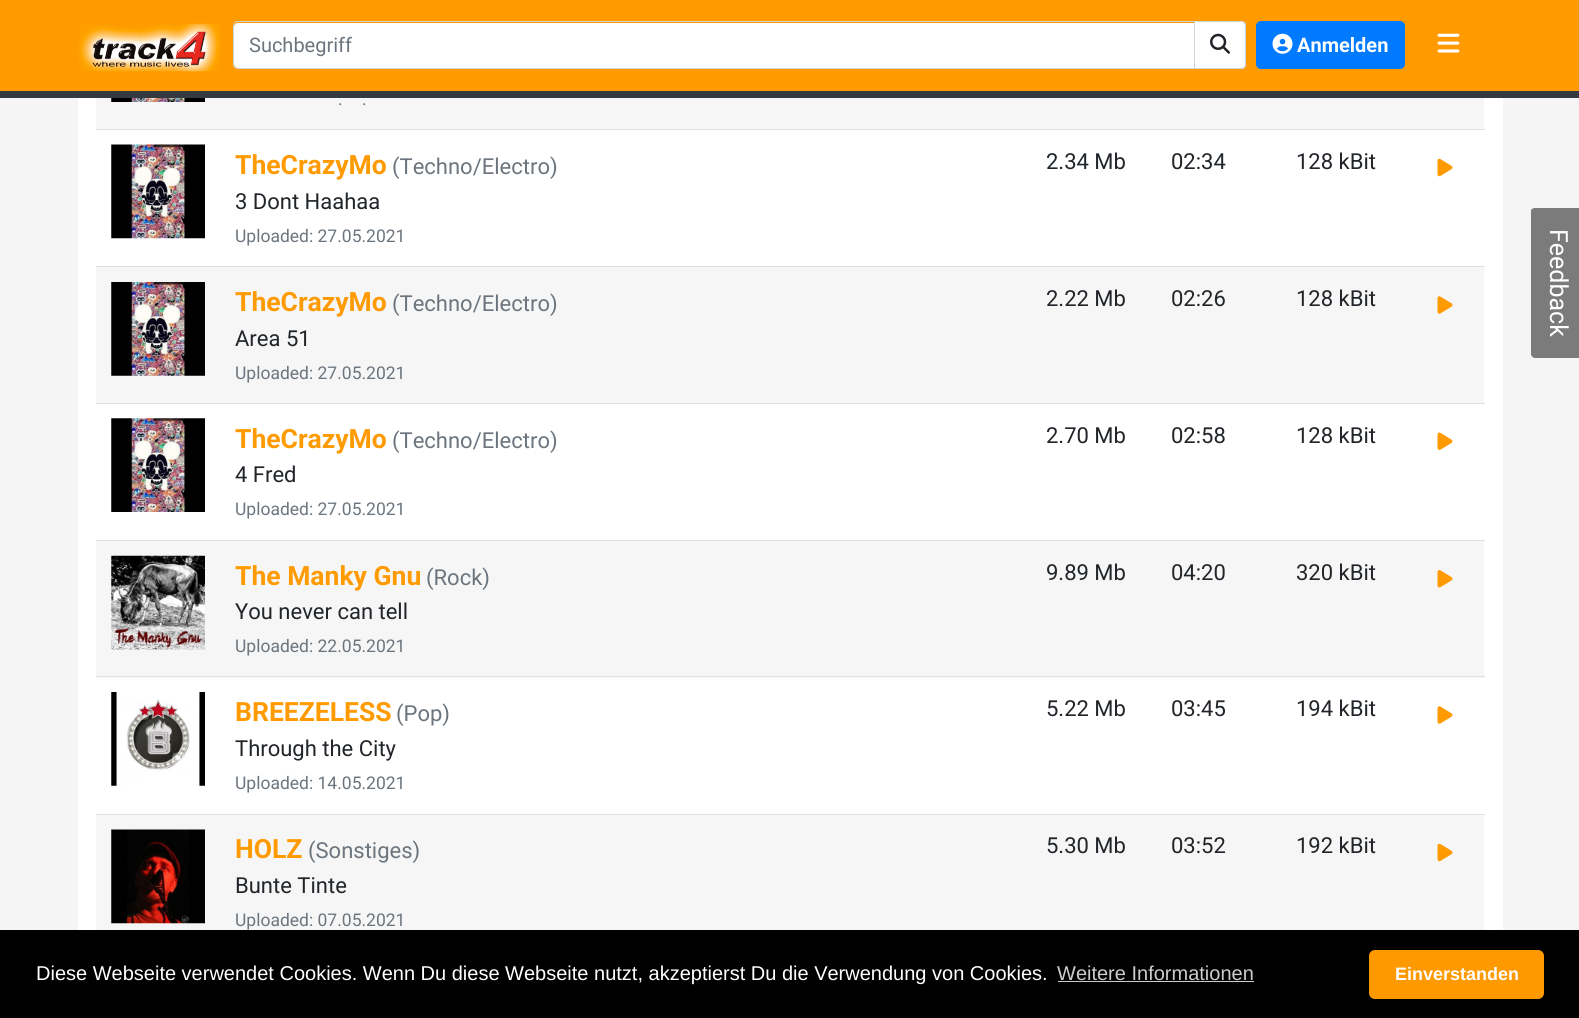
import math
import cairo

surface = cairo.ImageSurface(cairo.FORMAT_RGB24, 1579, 1018)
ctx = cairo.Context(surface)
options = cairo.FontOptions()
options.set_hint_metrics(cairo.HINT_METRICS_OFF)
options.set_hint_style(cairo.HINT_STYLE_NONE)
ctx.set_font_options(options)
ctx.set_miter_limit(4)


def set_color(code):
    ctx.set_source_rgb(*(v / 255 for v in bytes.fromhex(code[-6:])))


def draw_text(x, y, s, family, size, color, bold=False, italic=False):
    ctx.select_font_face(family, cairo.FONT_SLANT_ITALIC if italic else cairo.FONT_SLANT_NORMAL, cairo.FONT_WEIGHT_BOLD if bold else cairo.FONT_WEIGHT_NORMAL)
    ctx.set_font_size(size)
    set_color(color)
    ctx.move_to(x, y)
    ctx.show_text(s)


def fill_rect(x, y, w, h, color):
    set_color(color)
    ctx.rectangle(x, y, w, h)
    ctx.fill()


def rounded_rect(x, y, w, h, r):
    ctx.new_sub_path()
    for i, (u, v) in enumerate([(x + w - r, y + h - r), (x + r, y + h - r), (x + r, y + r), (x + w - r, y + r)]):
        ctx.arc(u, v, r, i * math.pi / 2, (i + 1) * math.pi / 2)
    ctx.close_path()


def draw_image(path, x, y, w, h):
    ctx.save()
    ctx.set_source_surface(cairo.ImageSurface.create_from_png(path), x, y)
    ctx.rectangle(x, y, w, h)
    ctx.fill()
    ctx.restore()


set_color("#f5f5f5")
ctx.paint()
fill_rect(0, 0, 1579, 91, "#ff9a00")
fill_rect(0, 91, 1579, 7, "#343a40")
draw_image("assets/img1.png", 78, 23, 143, 49)
set_color("#ffffff")
ctx.new_path()
ctx.move_to(238, 23)
ctx.line_to(1194, 23)
ctx.line_to(1194, 68)
ctx.line_to(238, 68)
ctx.curve_to(236, 68, 234, 66, 234, 64)
ctx.line_to(234, 27)
ctx.curve_to(234, 25, 236, 23, 238, 23)
ctx.close_path()
ctx.fill()
ctx.new_path()
ctx.move_to(238, 21.5)
ctx.line_to(1194.5, 21.5)
ctx.line_to(1194.5, 68.5)
ctx.line_to(238, 68.5)
ctx.curve_to(235.5, 68.5, 233.5, 66.5, 233.5, 64)
ctx.line_to(233.5, 26)
ctx.curve_to(233.5, 23.5, 235.5, 21.5, 238, 21.5)
ctx.close_path()
set_color("#ced4da")
ctx.set_line_width(1)
ctx.stroke()
draw_text(249, 52, "Suchbegriff", "Roboto", 20, "#6c757d")
set_color("#ffffff")
ctx.new_path()
ctx.move_to(1195, 21)
ctx.line_to(1241, 21)
ctx.curve_to(1244, 21, 1246, 23, 1246, 26)
ctx.line_to(1246, 64)
ctx.curve_to(1246, 67, 1244, 69, 1241, 69)
ctx.line_to(1195, 69)
ctx.close_path()
ctx.fill()
set_color("#ced4da")
ctx.set_fill_rule(cairo.FILL_RULE_EVEN_ODD)
ctx.new_path()
ctx.move_to(1195, 21)
ctx.line_to(1241, 21)
ctx.curve_to(1244, 21, 1246, 23, 1246, 26)
ctx.line_to(1246, 64)
ctx.curve_to(1246, 67, 1244, 69, 1241, 69)
ctx.line_to(1195, 69)
ctx.close_path()
ctx.move_to(1195, 22)
ctx.line_to(1241, 22)
ctx.curve_to(1243, 22, 1245, 24, 1245, 26)
ctx.line_to(1245, 64)
ctx.curve_to(1245, 66, 1243, 68, 1241, 68)
ctx.line_to(1195, 68)
ctx.close_path()
ctx.fill()
draw_image("assets/img2.png", 1210, 33, 20, 21)
set_color("#007bff")
rounded_rect(1256.5, 21.5, 148, 47, 4.5)
ctx.fill_preserve()
ctx.stroke()
draw_image("assets/img3.png", 1272, 33, 21, 21)
draw_text(1297, 52, "Anmelden", "Roboto", 20, "#ffffff", bold=True)
draw_image("assets/img4.png", 1437, 33, 23, 20)
fill_rect(78, 98, 1425, 832, "#ffffff")
fill_rect(96, 98, 1388, 31, "#f6f6f6")
draw_image("assets/img5.png", 111, 98, 94, 4)
draw_text(338, 105, ".", "Roboto", 17.5, "#6c757d")
draw_text(362, 105, ".", "Roboto", 17.5, "#6c757d")
fill_rect(96, 129, 1389, 1, "#dee2e6")
draw_image("assets/img6.png", 1437, 158, 16, 19)
draw_image("assets/img7.png", 111, 144, 94, 95)
draw_text(235, 174, "TheCrazyMo", "Roboto", 26.5, "#ff9a00", bold=True)
draw_text(392, 174, "(Techno/Electro)", "Roboto", 22, "#6c757d")
draw_text(235, 209, "3 Dont Haahaa", "Roboto", 22, "#212529")
draw_text(235, 242, "Uploaded: 27.05.2021", "Roboto", 17.5, "#6c757d")
draw_text(1046, 169, "2.34 Mb", "Roboto", 22, "#212529")
draw_text(1171, 169, "02:34", "Roboto", 22, "#212529")
draw_text(1296, 169, "128 kBit", "Roboto", 22, "#212529")
fill_rect(96, 266, 1389, 1, "#dee2e6")
fill_rect(96, 267, 1388, 136, "#f6f6f6")
draw_image("assets/img8.png", 1437, 296, 16, 18)
draw_image("assets/img9.png", 111, 282, 94, 94)
draw_text(235, 311, "TheCrazyMo", "Roboto", 26.5, "#ff9a00", bold=True)
draw_text(392, 311, "(Techno/Electro)", "Roboto", 22, "#6c757d")
draw_text(235, 346, "Area 51", "Roboto", 22, "#212529")
draw_text(235, 379, "Uploaded: 27.05.2021", "Roboto", 17.5, "#6c757d")
draw_text(1046, 306, "2.22 Mb", "Roboto", 22, "#212529")
draw_text(1171, 306, "02:26", "Roboto", 22, "#212529")
draw_text(1296, 306, "128 kBit", "Roboto", 22, "#212529")
fill_rect(96, 403, 1389, 1, "#dee2e6")
draw_image("assets/img10.png", 1437, 432, 16, 18)
draw_image("assets/img11.png", 111, 418, 94, 94)
draw_text(235, 448, "TheCrazyMo", "Roboto", 26.5, "#ff9a00", bold=True)
draw_text(392, 448, "(Techno/Electro)", "Roboto", 22, "#6c757d")
draw_text(235, 482, "4 Fred", "Roboto", 22, "#212529")
draw_text(235, 515, "Uploaded: 27.05.2021", "Roboto", 17.5, "#6c757d")
draw_text(1046, 443, "2.70 Mb", "Roboto", 22, "#212529")
draw_text(1171, 443, "02:58", "Roboto", 22, "#212529")
draw_text(1296, 443, "128 kBit", "Roboto", 22, "#212529")
fill_rect(96, 540, 1389, 1, "#dee2e6")
fill_rect(96, 541, 1388, 137, "#f6f6f6")
draw_image("assets/img12.png", 1437, 570, 16, 18)
draw_image("assets/img13.png", 111, 555, 94, 95)
draw_text(235, 585, "The Manky Gnu", "Roboto", 26.5, "#ff9a00", bold=True)
draw_text(426, 585, "(Rock)", "Roboto", 22, "#6c757d")
draw_text(235, 619, "You never can tell", "Roboto", 22, "#212529")
draw_text(235, 652, "Uploaded: 22.05.2021", "Roboto", 17.5, "#6c757d")
draw_text(1046, 580, "9.89 Mb", "Roboto", 22, "#212529")
draw_text(1171, 580, "04:20", "Roboto", 22, "#212529")
draw_text(1296, 580, "320 kBit", "Roboto", 22, "#212529")
fill_rect(96, 676, 1389, 1, "#dee2e6")
draw_image("assets/img14.png", 1437, 706, 16, 18)
draw_image("assets/img15.png", 111, 692, 94, 94)
draw_text(235, 721, "BREEZELESS", "Roboto", 26.5, "#ff9a00", bold=True)
draw_text(396, 721, "(Pop)", "Roboto", 22, "#6c757d")
draw_text(235, 756, "Through the City", "Roboto", 22, "#212529")
draw_text(235, 789, "Uploaded: 14.05.2021", "Roboto", 17.5, "#6c757d")
draw_text(1046, 716, "5.22 Mb", "Roboto", 22, "#212529")
draw_text(1171, 716, "03:45", "Roboto", 22, "#212529")
draw_text(1296, 716, "194 kBit", "Roboto", 22, "#212529")
fill_rect(96, 814, 1389, 1, "#dee2e6")
fill_rect(96, 815, 1388, 115, "#f6f6f6")
draw_image("assets/img16.png", 1437, 843, 16, 19)
draw_image("assets/img17.png", 111, 829, 94, 95)
draw_text(235, 858, "HOLZ", "Roboto", 26.5, "#ff9a00", bold=True)
draw_text(308, 858, "(Sonstiges)", "Roboto", 22, "#6c757d")
draw_text(235, 893, "Bunte Tinte", "Roboto", 22, "#212529")
draw_text(235, 926, "Uploaded: 07.05.2021", "Roboto", 17.5, "#6c757d")
draw_text(1046, 853, "5.30 Mb", "Roboto", 22, "#212529")
draw_text(1171, 853, "03:52", "Roboto", 22, "#212529")
draw_text(1296, 853, "192 kBit", "Roboto", 22, "#212529")
set_color("#7b7b7b")
ctx.set_fill_rule(cairo.FILL_RULE_WINDING)
ctx.new_path()
ctx.move_to(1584, 211)
ctx.line_to(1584, 354)
ctx.curve_to(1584, 356, 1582, 358, 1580, 358)
ctx.line_to(1535, 358)
ctx.curve_to(1533, 358, 1531, 356, 1531, 354)
ctx.line_to(1531, 211)
ctx.curve_to(1531, 209, 1533, 208, 1535, 208)
ctx.line_to(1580, 208)
ctx.curve_to(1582, 208, 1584, 209, 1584, 211)
ctx.close_path()
ctx.fill()
ctx.save()
ctx.translate(1550, 229)
ctx.rotate(90 * math.pi / 180)
draw_text(0, 0, "Feedback", "Roboto", 25, "#ffffff")
ctx.restore()
fill_rect(0, 930, 1579, 88, "#000000")
draw_text(36, 980, "Diese Webseite verwendet Cookies. Wenn Du diese Webseite nutzt, akzeptierst Du die Verwendung von Cookies.", "Liberation Sans", 20, "#ffffff")
draw_text(1057, 980, "Weitere Informationen", "Liberation Sans", 20, "#cccccc")
fill_rect(1058, 981, 196, 1, "#cccccc")
set_color("#ff9900")
rounded_rect(1369, 950, 175, 49, 6)
ctx.fill()
draw_text(1395, 980, "Einverstanden", "Liberation Sans", 18, "#ffffff", bold=True)
surface.write_to_png("output.png")
